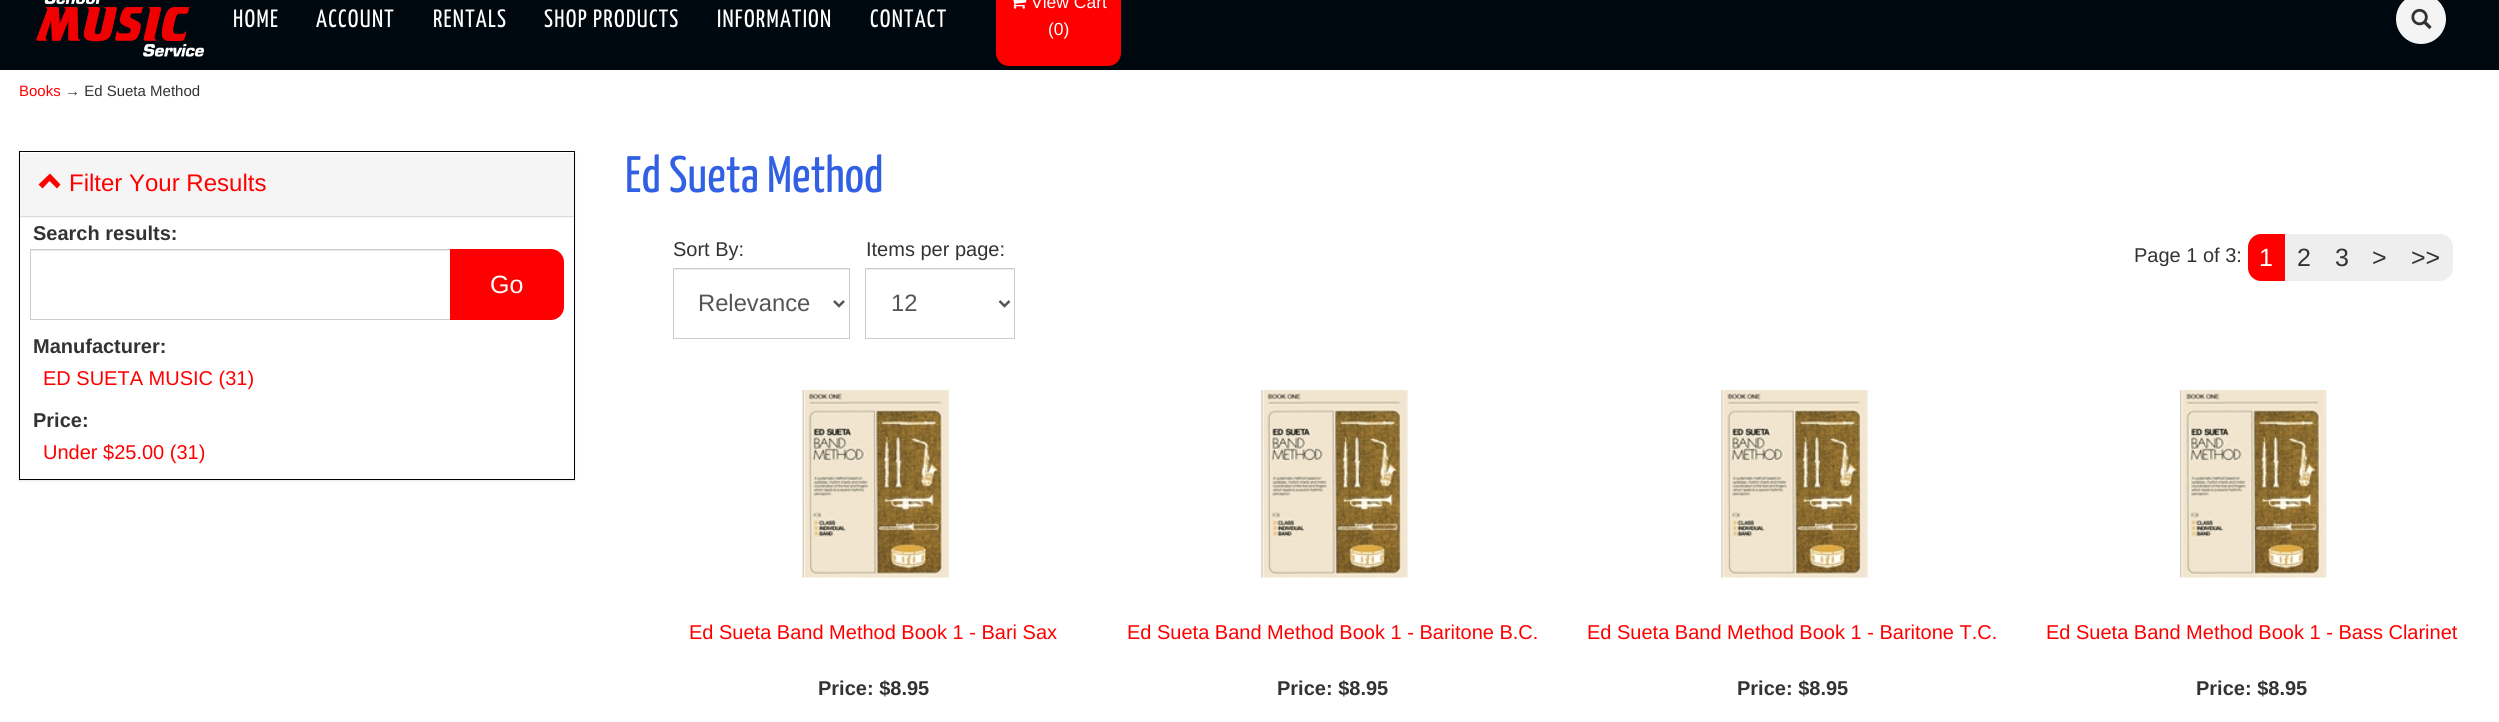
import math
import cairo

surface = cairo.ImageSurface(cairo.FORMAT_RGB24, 2499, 722)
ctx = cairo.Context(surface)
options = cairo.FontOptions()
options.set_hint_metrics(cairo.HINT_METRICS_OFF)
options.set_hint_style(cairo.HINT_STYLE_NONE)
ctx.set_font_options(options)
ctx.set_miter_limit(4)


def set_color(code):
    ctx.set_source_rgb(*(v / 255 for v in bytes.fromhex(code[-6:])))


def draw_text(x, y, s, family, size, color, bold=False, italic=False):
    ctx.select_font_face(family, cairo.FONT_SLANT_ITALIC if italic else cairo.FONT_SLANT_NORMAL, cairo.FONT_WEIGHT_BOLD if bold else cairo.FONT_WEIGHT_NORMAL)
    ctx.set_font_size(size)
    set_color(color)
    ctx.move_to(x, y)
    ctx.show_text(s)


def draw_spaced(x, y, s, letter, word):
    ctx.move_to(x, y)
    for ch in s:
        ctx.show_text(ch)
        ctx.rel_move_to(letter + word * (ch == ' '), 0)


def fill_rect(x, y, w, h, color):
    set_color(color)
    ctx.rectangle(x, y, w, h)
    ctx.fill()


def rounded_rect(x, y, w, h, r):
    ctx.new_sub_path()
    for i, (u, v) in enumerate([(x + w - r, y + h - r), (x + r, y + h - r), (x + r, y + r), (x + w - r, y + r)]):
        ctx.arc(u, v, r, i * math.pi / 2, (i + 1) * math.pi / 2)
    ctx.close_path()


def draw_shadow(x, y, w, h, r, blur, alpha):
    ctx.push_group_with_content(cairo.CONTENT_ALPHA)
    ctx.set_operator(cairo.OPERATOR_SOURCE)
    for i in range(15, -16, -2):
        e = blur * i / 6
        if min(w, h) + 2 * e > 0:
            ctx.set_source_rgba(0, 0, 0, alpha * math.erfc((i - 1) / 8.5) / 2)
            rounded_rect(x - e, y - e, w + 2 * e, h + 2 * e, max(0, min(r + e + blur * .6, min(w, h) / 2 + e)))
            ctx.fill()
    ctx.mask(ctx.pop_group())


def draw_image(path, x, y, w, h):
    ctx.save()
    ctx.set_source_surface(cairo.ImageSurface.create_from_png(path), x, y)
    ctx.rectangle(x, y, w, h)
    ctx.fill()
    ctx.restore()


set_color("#ffffff")
ctx.paint()
fill_rect(0, 0, 2499, 70, "#00080f")
draw_image("assets/img1.png", 36, 0, 169, 57)
ctx.select_font_face("Yanone Kaffeesatz")
ctx.set_font_size(25)
set_color("#ffffff")
draw_spaced(233, 27, "HOME", 1.25, 0)
draw_spaced(316, 27, "ACCOUNT", 1.25, 0)
draw_spaced(433, 27, "RENTALS", 1.25, 0)
draw_spaced(544, 27, "SHOP PRODUCTS", 1.25, 0)
draw_spaced(717, 27, "INFORMATION", 1.25, 0)
draw_spaced(870, 27, "CONTACT", 1.25, 0)
set_color("#ff0000")
rounded_rect(996, -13, 125, 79, 13)
ctx.fill()
draw_image("assets/img2.png", 1013, 0, 14, 9)
draw_text(1031, 8, "View Cart", "Liberation Sans", 17.5, "#ffffff")
draw_text(1048, 35, "(0)", "Liberation Sans", 17.5, "#ffffff")
set_color("#f4f4f4")
ctx.new_path()
ctx.arc(2421, 19, 25, 0, 2 * math.pi)
ctx.fill()
draw_image("assets/img3.png", 2411, 8, 21, 21)
draw_text(19, 96, "Books", "Liberation Sans", 15, "#ff0000")
draw_text(65, 96, "→ Ed Sueta Method", "Liberation Sans", 15, "#333333")
ctx.save()
ctx.set_fill_rule(cairo.FILL_RULE_EVEN_ODD)
ctx.new_path()
ctx.move_to(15, 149)
ctx.line_to(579, 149)
ctx.line_to(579, 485)
ctx.line_to(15, 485)
ctx.close_path()
ctx.move_to(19, 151)
ctx.line_to(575, 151)
ctx.line_to(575, 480)
ctx.line_to(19, 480)
ctx.close_path()
ctx.clip()
set_color("#000000")
draw_shadow(19, 153, 556, 328, 0, 1, 0.1)
ctx.restore()
ctx.rectangle(19.5, 151.5, 555, 328)
set_color("#000000")
ctx.set_line_width(1)
ctx.stroke()
fill_rect(20, 153, 554, 65, "#f5f5f5")
fill_rect(20, 216, 554, 1, "#dddddd")
set_color("#ff0000")
ctx.new_path()
ctx.move_to(60.5, 184.5)
ctx.line_to(57, 188.5)
ctx.line_to(49.5, 181)
ctx.line_to(42.5, 188.5)
ctx.line_to(38.5, 184.5)
ctx.line_to(50, 173.5)
ctx.close_path()
ctx.fill()
draw_text(69, 191, "Filter Your Results", "Liberation Sans", 24, "#ff0000")
draw_text(33, 240, "Search results:", "Liberation Sans", 20, "#333333", bold=True)
fill_rect(31, 250, 419, 1, "#eaeaea")
ctx.rectangle(30.5, 249.5, 420, 70)
set_color("#cccccc")
ctx.stroke()
set_color("#ff0000")
ctx.new_path()
ctx.move_to(450, 249)
ctx.line_to(551, 249)
ctx.curve_to(558, 249, 564, 255, 564, 262)
ctx.line_to(564, 307)
ctx.curve_to(564, 314, 558, 320, 551, 320)
ctx.line_to(450, 320)
ctx.close_path()
ctx.fill()
draw_text(490, 293, "Go", "Liberation Sans", 25, "#ffffff")
draw_text(33, 353, "Manufacturer:", "Liberation Sans", 20, "#333333", bold=True)
draw_text(43, 385, "ED SUETA MUSIC (31)", "Liberation Sans", 20, "#ff0000")
draw_text(33, 427, "Price:", "Liberation Sans", 20, "#333333", bold=True)
draw_text(43, 459, "Under $25.00 (31)", "Liberation Sans", 20, "#ff0000")
draw_text(625, 192, "Ed Sueta Method", "Yanone Kaffeesatz", 51.25, "#3260e3")
draw_text(673, 256, "Sort By:", "Liberation Sans", 20, "#333333")
fill_rect(674, 269, 175, 1, "#eaeaea")
ctx.rectangle(673.5, 268.5, 176, 70)
set_color("#cccccc")
ctx.stroke()
ctx.new_path()
ctx.move_to(834, 301)
ctx.line_to(839, 306)
ctx.line_to(844, 301)
set_color("#555555")
ctx.set_line_width(2.5)
ctx.stroke()
draw_text(698, 311, "Relevance", "Liberation Sans", 23.75, "#555555")
draw_text(866, 256, "Items per page:", "Liberation Sans", 20, "#333333")
fill_rect(866, 269, 148, 1, "#eaeaea")
ctx.rectangle(865.5, 268.5, 149, 70)
set_color("#cccccc")
ctx.set_line_width(1)
ctx.stroke()
ctx.new_path()
ctx.move_to(999.5, 301)
ctx.line_to(1004.5, 306)
ctx.line_to(1009.5, 301)
set_color("#555555")
ctx.set_line_width(2.5)
ctx.stroke()
draw_text(891, 311, "12", "Liberation Sans", 23.75, "#555555")
draw_text(2134, 262, "Page 1 of 3:", "Liberation Sans", 20, "#333333")
set_color("#ff0000")
ctx.new_path()
ctx.move_to(2261, 234)
ctx.line_to(2286, 234)
ctx.line_to(2286, 281)
ctx.line_to(2261, 281)
ctx.curve_to(2254, 281, 2248, 275, 2248, 268)
ctx.line_to(2248, 247)
ctx.curve_to(2248, 240, 2254, 234, 2261, 234)
ctx.close_path()
ctx.fill()
draw_text(2259, 266, "1", "Liberation Sans", 25, "#ffffff")
fill_rect(2285, 234, 114, 47, "#eeeeee")
draw_text(2297, 266, "2", "Liberation Sans", 25, "#333333")
draw_text(2335, 266, "3", "Liberation Sans", 25, "#333333")
draw_text(2372, 266, ">", "Liberation Sans", 25, "#333333")
set_color("#eeeeee")
ctx.new_path()
ctx.move_to(2399, 234)
ctx.line_to(2440, 234)
ctx.curve_to(2447, 234, 2453, 240, 2453, 247)
ctx.line_to(2453, 268)
ctx.curve_to(2453, 275, 2447, 281, 2440, 281)
ctx.line_to(2399, 281)
ctx.close_path()
ctx.fill()
draw_text(2411, 266, ">>", "Liberation Sans", 25, "#333333")
draw_image("assets/img4.png", 801, 390, 150, 188)
draw_text(689, 639, "Ed Sueta Band Method Book 1 - Bari Sax", "Liberation Sans", 20, "#ff0000")
draw_text(818, 695, "Price: $8.95", "Liberation Sans", 20, "#333333", bold=True)
draw_image("assets/img5.png", 1260, 390, 149, 188)
draw_text(1127, 639, "Ed Sueta Band Method Book 1 - Baritone B.C.", "Liberation Sans", 20, "#ff0000")
draw_text(1277, 695, "Price: $8.95", "Liberation Sans", 20, "#333333", bold=True)
draw_image("assets/img6.png", 1720, 390, 149, 188)
draw_text(1587, 639, "Ed Sueta Band Method Book 1 - Baritone T.C.", "Liberation Sans", 20, "#ff0000")
draw_text(1737, 695, "Price: $8.95", "Liberation Sans", 20, "#333333", bold=True)
draw_image("assets/img7.png", 2179, 390, 149, 188)
draw_text(2046, 639, "Ed Sueta Band Method Book 1 - Bass Clarinet", "Liberation Sans", 20, "#ff0000")
draw_text(2196, 695, "Price: $8.95", "Liberation Sans", 20, "#333333", bold=True)
surface.write_to_png("output.png")
